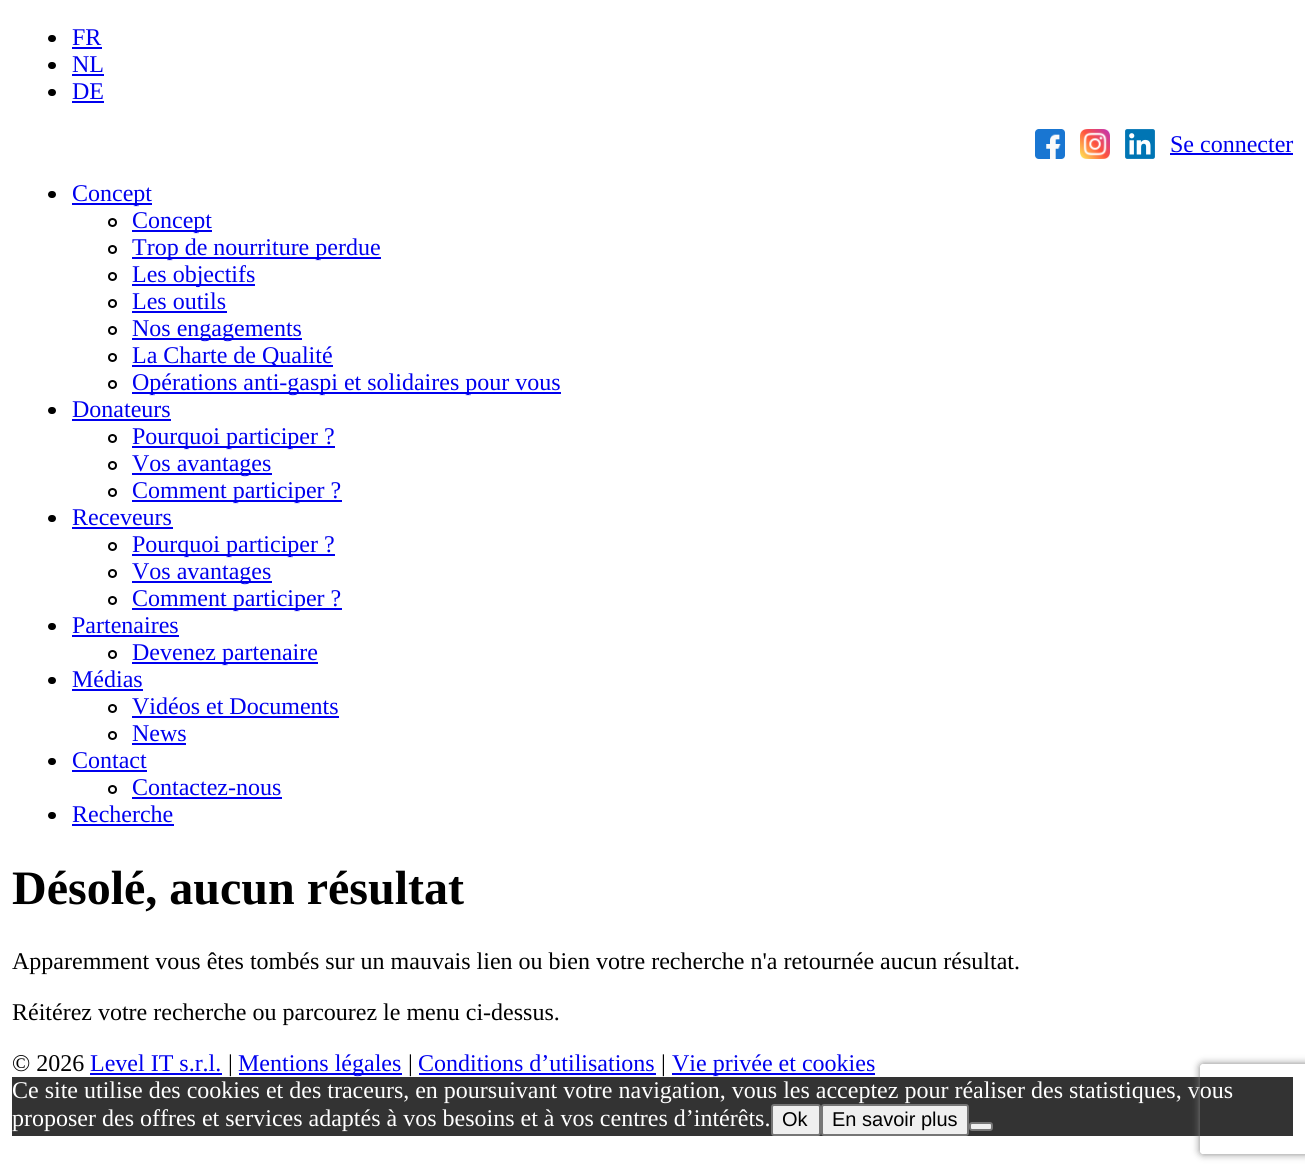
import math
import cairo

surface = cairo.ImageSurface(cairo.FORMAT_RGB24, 1305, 1174)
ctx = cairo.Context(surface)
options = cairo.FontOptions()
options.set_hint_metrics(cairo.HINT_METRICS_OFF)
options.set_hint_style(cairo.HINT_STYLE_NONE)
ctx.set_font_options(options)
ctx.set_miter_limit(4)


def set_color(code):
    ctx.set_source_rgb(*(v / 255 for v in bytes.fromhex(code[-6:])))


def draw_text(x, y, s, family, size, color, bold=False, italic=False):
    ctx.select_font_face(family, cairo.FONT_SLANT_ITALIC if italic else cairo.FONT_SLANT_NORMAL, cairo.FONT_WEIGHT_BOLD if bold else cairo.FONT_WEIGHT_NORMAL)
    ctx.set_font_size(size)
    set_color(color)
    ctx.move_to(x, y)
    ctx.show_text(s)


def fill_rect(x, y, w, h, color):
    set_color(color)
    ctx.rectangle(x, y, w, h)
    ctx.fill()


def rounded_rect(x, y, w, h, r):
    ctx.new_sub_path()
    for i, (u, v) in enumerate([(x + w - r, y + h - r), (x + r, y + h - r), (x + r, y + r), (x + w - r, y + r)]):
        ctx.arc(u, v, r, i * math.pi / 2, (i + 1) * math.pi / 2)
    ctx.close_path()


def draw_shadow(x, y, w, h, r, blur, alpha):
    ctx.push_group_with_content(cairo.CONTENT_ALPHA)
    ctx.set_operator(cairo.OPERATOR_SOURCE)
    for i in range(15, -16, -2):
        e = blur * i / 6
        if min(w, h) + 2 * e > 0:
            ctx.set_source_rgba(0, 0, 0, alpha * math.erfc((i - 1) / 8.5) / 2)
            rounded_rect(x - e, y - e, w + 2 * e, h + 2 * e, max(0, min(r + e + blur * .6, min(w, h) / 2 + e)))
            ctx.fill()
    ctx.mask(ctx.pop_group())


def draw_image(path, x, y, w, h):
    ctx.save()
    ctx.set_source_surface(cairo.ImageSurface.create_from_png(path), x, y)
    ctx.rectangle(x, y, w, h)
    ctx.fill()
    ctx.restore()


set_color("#ffffff")
ctx.paint()
set_color("#000000")
rounded_rect(48, 35, 8, 7, 3.5)
ctx.fill()
draw_text(72, 45, "FR", "Liberation Serif", 24, "#0000ee")
fill_rect(72, 47, 30, 2, "#0000ee")
set_color("#000000")
rounded_rect(48, 62, 8, 7, 3.5)
ctx.fill()
draw_text(72, 72, "NL", "Liberation Serif", 24, "#0000ee")
fill_rect(72, 74, 32, 2, "#0000ee")
set_color("#000000")
rounded_rect(48, 89, 8, 7, 3.5)
ctx.fill()
draw_text(72, 99, "DE", "Liberation Serif", 24, "#0000ee")
fill_rect(72, 101, 32, 2, "#0000ee")
draw_image("assets/img1.png", 1035, 129, 30, 30)
draw_image("assets/img2.png", 1080, 129, 30, 30)
draw_image("assets/img3.png", 1125, 129, 30, 30)
draw_text(1170, 152, "Se connecter", "Liberation Serif", 24, "#0000ee")
fill_rect(1170, 153, 123, 2, "#0000ee")
set_color("#000000")
rounded_rect(48, 191, 8, 7, 3.5)
ctx.fill()
fill_rect(72, 203, 80, 2, "#0000ee")
draw_text(72, 201, "Concept", "Liberation Serif", 24, "#0000ee")
ctx.new_path()
ctx.arc(112.5, 222.5, 3.5, 0, 2 * math.pi)
set_color("#000000")
ctx.stroke()
fill_rect(132, 230, 80, 2, "#0000ee")
draw_text(132, 228, "Concept", "Liberation Serif", 24, "#0000ee")
ctx.new_path()
ctx.arc(112.5, 249.5, 3.5, 0, 2 * math.pi)
set_color("#000000")
ctx.stroke()
fill_rect(132, 257, 249, 2, "#0000ee")
draw_text(132, 255, "Trop de nourriture perdue", "Liberation Serif", 24, "#0000ee")
ctx.new_path()
ctx.arc(112.5, 276.5, 3.5, 0, 2 * math.pi)
set_color("#000000")
ctx.stroke()
fill_rect(132, 284, 123, 2, "#0000ee")
draw_text(132, 282, "Les objectifs", "Liberation Serif", 24, "#0000ee")
ctx.new_path()
ctx.arc(112.5, 303.5, 3.5, 0, 2 * math.pi)
set_color("#000000")
ctx.stroke()
draw_text(132, 309, "Les outils", "Liberation Serif", 24, "#0000ee")
fill_rect(132, 311, 95, 2, "#0000ee")
ctx.new_path()
ctx.arc(112.5, 330.5, 3.5, 0, 2 * math.pi)
set_color("#000000")
ctx.stroke()
fill_rect(132, 338, 170, 2, "#0000ee")
draw_text(132, 336, "Nos engagements", "Liberation Serif", 24, "#0000ee")
ctx.new_path()
ctx.arc(112.5, 357.5, 3.5, 0, 2 * math.pi)
set_color("#000000")
ctx.stroke()
fill_rect(132, 365, 201, 2, "#0000ee")
draw_text(132, 363, "La Charte de Qualité", "Liberation Serif", 24, "#0000ee")
ctx.new_path()
ctx.arc(112.5, 384.5, 3.5, 0, 2 * math.pi)
set_color("#000000")
ctx.stroke()
fill_rect(132, 392, 429, 2, "#0000ee")
draw_text(132, 390, "Opérations anti-gaspi et solidaires pour vous", "Liberation Serif", 24, "#0000ee")
set_color("#000000")
rounded_rect(48, 407, 8, 7, 3.5)
ctx.fill()
draw_text(72, 417, "Donateurs", "Liberation Serif", 24, "#0000ee")
fill_rect(72, 419, 99, 2, "#0000ee")
ctx.new_path()
ctx.arc(112.5, 438.5, 3.5, 0, 2 * math.pi)
set_color("#000000")
ctx.stroke()
fill_rect(132, 446, 203, 2, "#0000ee")
draw_text(132, 444, "Pourquoi participer ?", "Liberation Serif", 24, "#0000ee")
ctx.new_path()
ctx.arc(112.5, 465.5, 3.5, 0, 2 * math.pi)
set_color("#000000")
ctx.stroke()
fill_rect(132, 473, 140, 2, "#0000ee")
draw_text(132, 471, "Vos avantages", "Liberation Serif", 24, "#0000ee")
ctx.new_path()
ctx.arc(112.5, 492.5, 3.5, 0, 2 * math.pi)
set_color("#000000")
ctx.stroke()
fill_rect(132, 500, 210, 2, "#0000ee")
draw_text(132, 498, "Comment participer ?", "Liberation Serif", 24, "#0000ee")
set_color("#000000")
rounded_rect(48, 515, 8, 7, 3.5)
ctx.fill()
draw_text(72, 525, "Receveurs", "Liberation Serif", 24, "#0000ee")
fill_rect(72, 527, 101, 2, "#0000ee")
ctx.new_path()
ctx.arc(112.5, 546.5, 3.5, 0, 2 * math.pi)
set_color("#000000")
ctx.stroke()
fill_rect(132, 554, 203, 2, "#0000ee")
draw_text(132, 552, "Pourquoi participer ?", "Liberation Serif", 24, "#0000ee")
ctx.new_path()
ctx.arc(112.5, 573.5, 3.5, 0, 2 * math.pi)
set_color("#000000")
ctx.stroke()
fill_rect(132, 581, 140, 2, "#0000ee")
draw_text(132, 579, "Vos avantages", "Liberation Serif", 24, "#0000ee")
ctx.new_path()
ctx.arc(112.5, 600.5, 3.5, 0, 2 * math.pi)
set_color("#000000")
ctx.stroke()
fill_rect(132, 608, 210, 2, "#0000ee")
draw_text(132, 606, "Comment participer ?", "Liberation Serif", 24, "#0000ee")
set_color("#000000")
rounded_rect(48, 623, 8, 7, 3.5)
ctx.fill()
draw_text(72, 633, "Partenaires", "Liberation Serif", 24, "#0000ee")
fill_rect(72, 635, 107, 2, "#0000ee")
ctx.new_path()
ctx.arc(112.5, 654.5, 3.5, 0, 2 * math.pi)
set_color("#000000")
ctx.stroke()
fill_rect(132, 662, 186, 2, "#0000ee")
draw_text(132, 660, "Devenez partenaire", "Liberation Serif", 24, "#0000ee")
set_color("#000000")
rounded_rect(48, 677, 8, 7, 3.5)
ctx.fill()
draw_text(72, 687, "Médias", "Liberation Serif", 24, "#0000ee")
fill_rect(72, 689, 71, 2, "#0000ee")
ctx.new_path()
ctx.arc(112.5, 708.5, 3.5, 0, 2 * math.pi)
set_color("#000000")
ctx.stroke()
draw_text(132, 714, "Vidéos et Documents", "Liberation Serif", 24, "#0000ee")
fill_rect(132, 716, 207, 2, "#0000ee")
ctx.new_path()
ctx.arc(112.5, 735.5, 3.5, 0, 2 * math.pi)
set_color("#000000")
ctx.stroke()
draw_text(132, 741, "News", "Liberation Serif", 24, "#0000ee")
fill_rect(132, 743, 54, 2, "#0000ee")
set_color("#000000")
rounded_rect(48, 758, 8, 7, 3.5)
ctx.fill()
draw_text(72, 768, "Contact", "Liberation Serif", 24, "#0000ee")
fill_rect(72, 770, 75, 2, "#0000ee")
ctx.new_path()
ctx.arc(112.5, 789.5, 3.5, 0, 2 * math.pi)
set_color("#000000")
ctx.stroke()
draw_text(132, 795, "Contactez-nous", "Liberation Serif", 24, "#0000ee")
fill_rect(132, 797, 150, 2, "#0000ee")
set_color("#000000")
rounded_rect(48, 812, 8, 7, 3.5)
ctx.fill()
draw_text(72, 822, "Recherche", "Liberation Serif", 24, "#0000ee")
fill_rect(72, 824, 102, 2, "#0000ee")
draw_text(12, 904, "Désolé, aucun résultat", "Liberation Serif", 48, "#000000", bold=True)
draw_text(12, 969, "Apparemment vous êtes tombés sur un mauvais lien ou bien votre recherche n'a retournée aucun résultat.", "Liberation Serif", 24, "#000000")
draw_text(12, 1020, "Réitérez votre recherche ou parcourez le menu ci-dessus.", "Liberation Serif", 24, "#000000")
draw_text(12, 1071, "© 2026", "Liberation Serif", 24, "#000000")
draw_text(90, 1071, "Level IT s.r.l.", "Liberation Serif", 24, "#0000ee")
fill_rect(90, 1073, 132, 2, "#0000ee")
draw_text(228, 1071, "|", "Liberation Serif", 24, "#000000")
fill_rect(239, 1073, 163, 2, "#0000ee")
draw_text(238, 1071, "Mentions légales", "Liberation Serif", 24, "#0000ee")
draw_text(408, 1071, "|", "Liberation Serif", 24, "#000000")
draw_text(418, 1071, "Conditions d’utilisations", "Liberation Serif", 24, "#0000ee")
fill_rect(419, 1073, 237, 2, "#0000ee")
draw_text(661, 1071, "|", "Liberation Serif", 24, "#000000")
fill_rect(672, 1073, 203, 2, "#0000ee")
draw_text(672, 1071, "Vie privée et cookies", "Liberation Serif", 24, "#0000ee")
fill_rect(12, 1077, 1281, 59, "#333333")
draw_text(12, 1098, "Ce site utilise des cookies et des traceurs, en poursuivant votre navigation, vous les acceptez pour réaliser des statistiques, vous", "Liberation Serif", 24, "#ffffff")
draw_text(12, 1126, "proposer des offres et services adaptés à vos besoins et à vos centres d’intérêts.", "Liberation Serif", 24, "#ffffff")
set_color("#efefef")
rounded_rect(772, 1105, 48, 30, 2)
ctx.fill_preserve()
set_color("#767676")
ctx.stroke()
draw_text(782, 1126, "Ok", "Liberation Sans", 20, "#000000")
set_color("#efefef")
rounded_rect(822, 1105, 146, 30, 2)
ctx.fill_preserve()
set_color("#767676")
ctx.stroke()
draw_text(832, 1126, "En savoir plus", "Liberation Sans", 20, "#000000")
set_color("#efefef")
rounded_rect(970, 1123, 22, 7, 2)
ctx.fill_preserve()
set_color("#767676")
ctx.stroke()
ctx.save()
ctx.set_fill_rule(cairo.FILL_RULE_EVEN_ODD)
ctx.new_path()
ctx.move_to(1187, 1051)
ctx.line_to(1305, 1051)
ctx.line_to(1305, 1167)
ctx.line_to(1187, 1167)
ctx.close_path()
ctx.move_to(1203, 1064)
ctx.line_to(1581, 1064)
ctx.curve_to(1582.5, 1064, 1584, 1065.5, 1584, 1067)
ctx.line_to(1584, 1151)
ctx.curve_to(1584, 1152.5, 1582.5, 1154, 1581, 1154)
ctx.line_to(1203, 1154)
ctx.curve_to(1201.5, 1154, 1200, 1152.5, 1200, 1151)
ctx.line_to(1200, 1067)
ctx.curve_to(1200, 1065.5, 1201.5, 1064, 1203, 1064)
ctx.close_path()
ctx.clip()
set_color("#808080")
draw_shadow(1200, 1064, 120, 90, 3, 4, 1)
ctx.restore()
surface.write_to_png("output.png")
